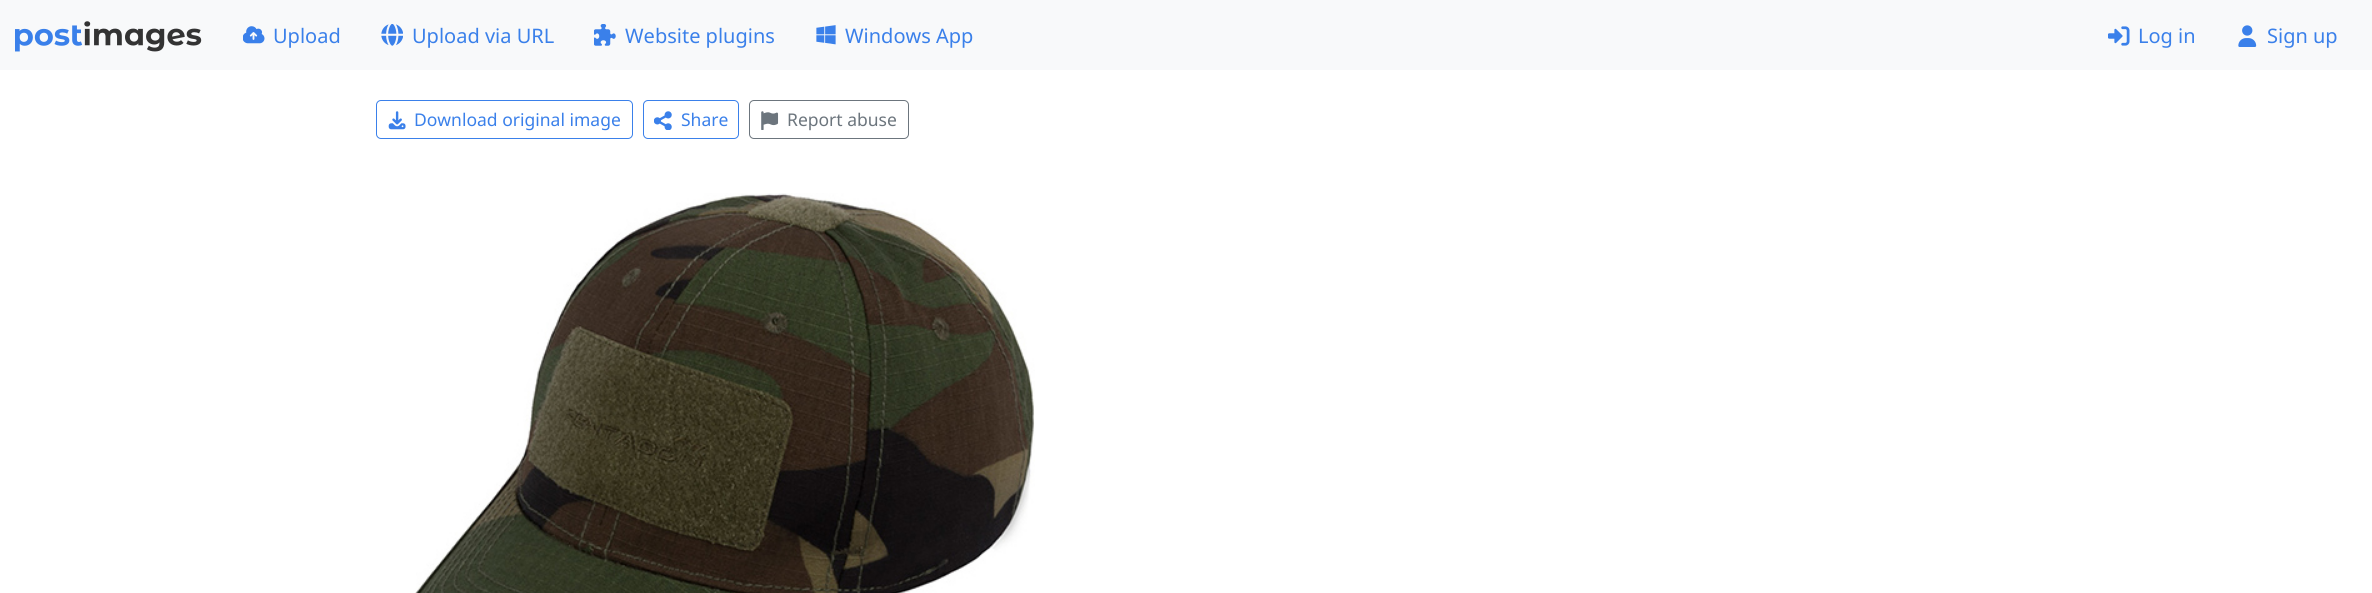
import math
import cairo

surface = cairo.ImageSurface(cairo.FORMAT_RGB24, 2372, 593)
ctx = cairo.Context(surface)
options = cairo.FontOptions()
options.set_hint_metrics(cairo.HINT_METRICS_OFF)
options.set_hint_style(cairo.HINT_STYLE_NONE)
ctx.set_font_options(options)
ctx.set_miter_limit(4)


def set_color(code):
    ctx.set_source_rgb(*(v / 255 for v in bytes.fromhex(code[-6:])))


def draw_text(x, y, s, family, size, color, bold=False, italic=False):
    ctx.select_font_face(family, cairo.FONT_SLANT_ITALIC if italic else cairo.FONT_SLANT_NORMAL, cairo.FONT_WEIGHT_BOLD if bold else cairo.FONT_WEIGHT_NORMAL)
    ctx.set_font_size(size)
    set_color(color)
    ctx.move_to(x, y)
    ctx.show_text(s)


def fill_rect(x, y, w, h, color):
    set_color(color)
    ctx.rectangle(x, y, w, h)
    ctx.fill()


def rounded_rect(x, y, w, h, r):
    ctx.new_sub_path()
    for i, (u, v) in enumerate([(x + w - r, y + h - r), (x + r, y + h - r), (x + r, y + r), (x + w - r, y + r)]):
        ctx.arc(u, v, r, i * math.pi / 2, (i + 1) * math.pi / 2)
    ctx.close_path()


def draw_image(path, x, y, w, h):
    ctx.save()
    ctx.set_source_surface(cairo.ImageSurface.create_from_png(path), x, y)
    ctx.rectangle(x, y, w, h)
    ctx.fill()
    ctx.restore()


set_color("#ffffff")
ctx.paint()
fill_rect(0, 0, 2372, 70, "#f8f9fa")
draw_image("assets/img1.png", 15, 21, 187, 31)
draw_image("assets/img2.png", 243, 26, 22, 18)
draw_text(273, 43, "Upload", "Noto Sans", 20, "#3a80ea")
draw_image("assets/img3.png", 381, 24, 22, 22)
draw_text(412, 43, "Upload via URL", "Noto Sans", 20, "#3a80ea")
draw_image("assets/img4.png", 594, 24, 22, 22)
draw_text(625, 43, "Website plugins", "Noto Sans", 20, "#3a80ea")
draw_image("assets/img5.png", 816, 25, 20, 20)
draw_text(845, 43, "Windows App", "Noto Sans", 20, "#3a80ea")
draw_image("assets/img6.png", 2108, 26, 22, 20)
draw_text(2138, 43, "Log in", "Noto Sans", 20, "#3a80ea")
draw_image("assets/img7.png", 2238, 25, 19, 22)
draw_text(2267, 43, "Sign up", "Noto Sans", 20, "#3a80ea")
rounded_rect(376.5, 100.5, 256, 38, 4.5)
ctx.set_line_width(1)
ctx.stroke()
draw_image("assets/img8.png", 388, 111, 18, 19)
draw_text(414, 126, "Download original image", "Noto Sans", 17.5, "#3a80ea")
rounded_rect(643.5, 100.5, 95, 38, 4.5)
ctx.stroke()
draw_image("assets/img9.png", 654, 111, 18, 19)
draw_text(681, 126, "Share", "Noto Sans", 17.5, "#3a80ea")
rounded_rect(749.5, 100.5, 159, 38, 4.5)
set_color("#6c757d")
ctx.stroke()
draw_image("assets/img10.png", 761, 111, 18, 19)
draw_text(787, 126, "Report abuse", "Noto Sans", 17.5, "#6c757d")
draw_image("assets/img11.png", 415, 193, 620, 400)
surface.write_to_png("output.png")
